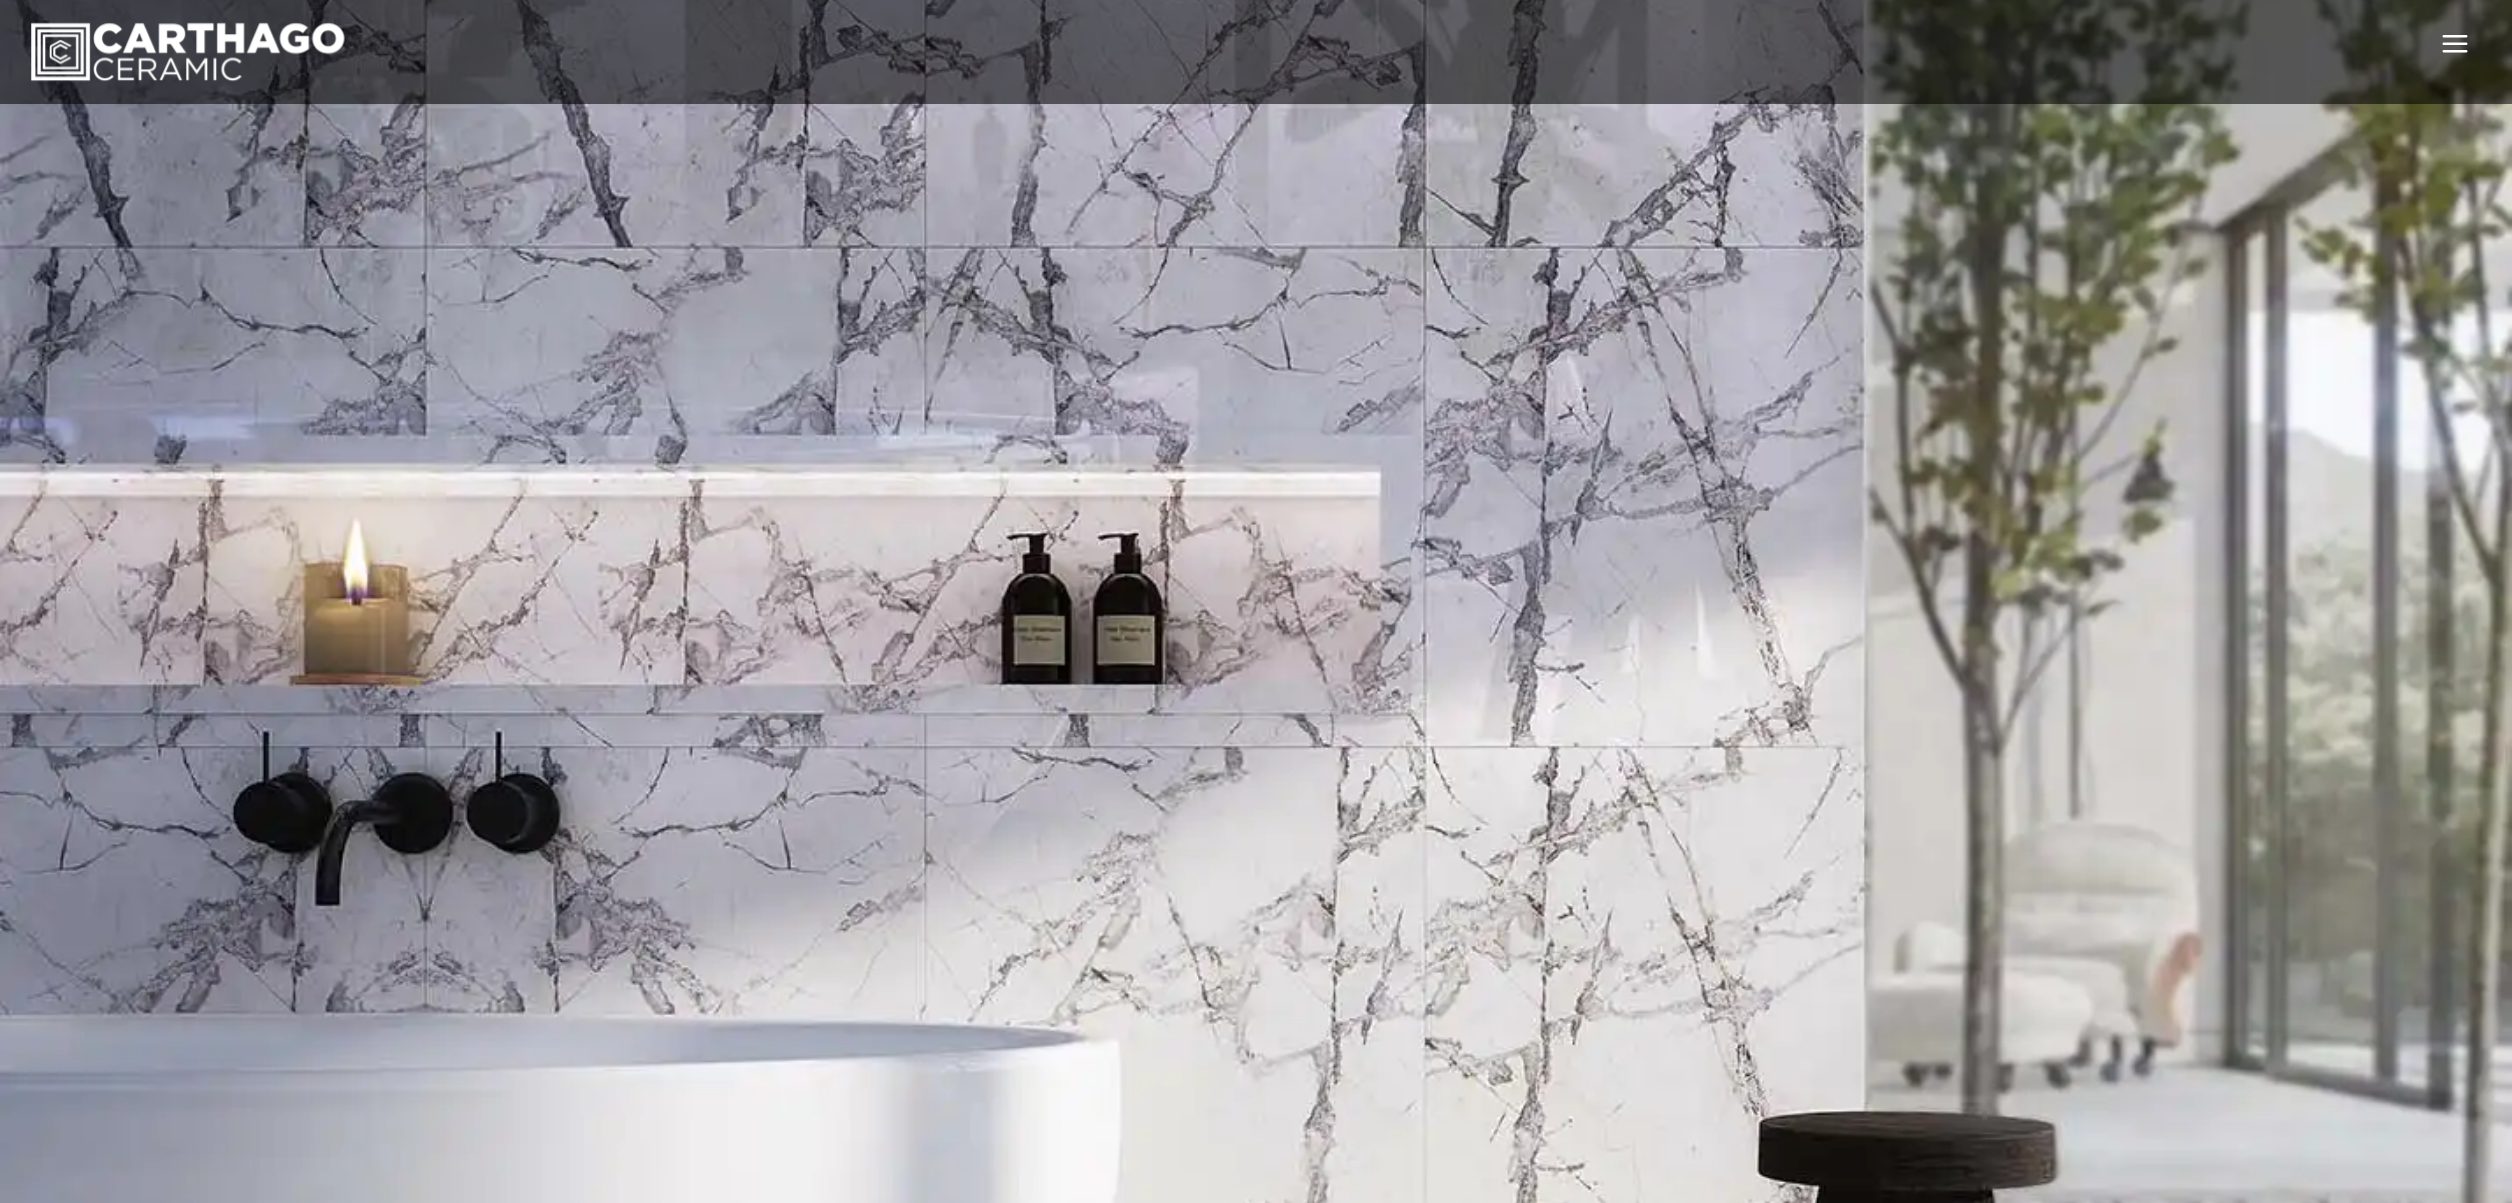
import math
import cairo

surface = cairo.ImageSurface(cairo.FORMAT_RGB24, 2512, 1203)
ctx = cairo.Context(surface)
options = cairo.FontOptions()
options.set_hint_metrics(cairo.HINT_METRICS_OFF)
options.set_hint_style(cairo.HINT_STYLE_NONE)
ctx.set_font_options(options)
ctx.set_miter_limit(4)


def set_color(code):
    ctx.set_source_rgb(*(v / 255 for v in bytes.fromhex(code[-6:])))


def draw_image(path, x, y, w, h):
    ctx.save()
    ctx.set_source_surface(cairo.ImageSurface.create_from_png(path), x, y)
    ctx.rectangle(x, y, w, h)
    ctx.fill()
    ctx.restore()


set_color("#ffffff")
ctx.paint()
draw_image("assets/img1.png", 0, 0, 2512, 1203)
ctx.set_source_rgba(0, 0, 0, 0.55)
ctx.rectangle(0, 0, 2512, 104)
ctx.fill()
draw_image("assets/img2.png", 31, 22, 314, 60)
draw_image("assets/img3.png", 2442, 35, 26, 18)
surface.write_to_png("output.png")
